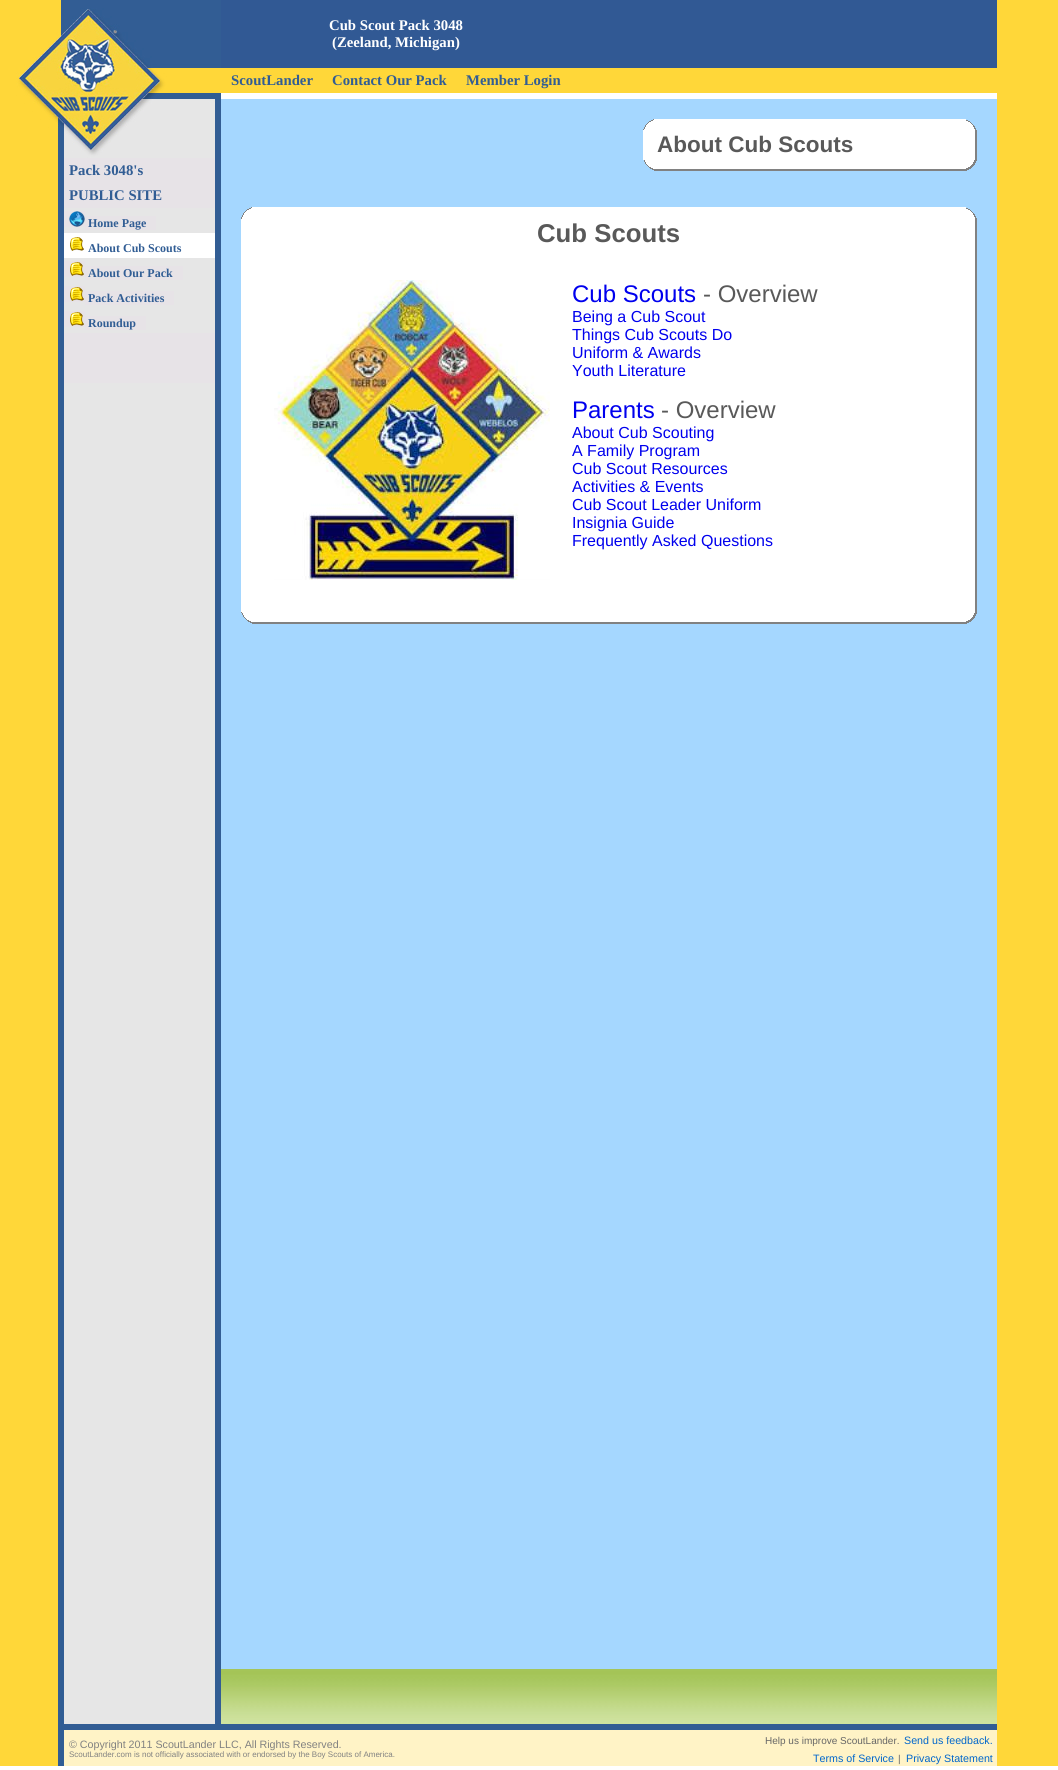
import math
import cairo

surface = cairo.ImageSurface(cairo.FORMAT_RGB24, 1058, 1770)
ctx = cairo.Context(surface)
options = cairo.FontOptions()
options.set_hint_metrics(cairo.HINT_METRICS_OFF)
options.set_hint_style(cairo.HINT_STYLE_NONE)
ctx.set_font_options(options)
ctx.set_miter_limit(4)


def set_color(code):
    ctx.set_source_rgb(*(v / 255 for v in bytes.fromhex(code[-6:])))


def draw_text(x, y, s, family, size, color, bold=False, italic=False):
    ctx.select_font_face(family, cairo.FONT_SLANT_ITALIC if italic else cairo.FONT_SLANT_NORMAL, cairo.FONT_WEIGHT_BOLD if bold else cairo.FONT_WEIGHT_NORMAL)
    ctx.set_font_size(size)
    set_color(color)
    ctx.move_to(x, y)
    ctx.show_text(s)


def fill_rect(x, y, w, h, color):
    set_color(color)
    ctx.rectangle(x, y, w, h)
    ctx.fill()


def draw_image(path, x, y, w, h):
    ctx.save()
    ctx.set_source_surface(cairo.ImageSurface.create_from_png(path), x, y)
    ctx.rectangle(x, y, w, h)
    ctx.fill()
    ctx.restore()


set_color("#ffffff")
ctx.paint()
draw_image("assets/img1.png", 0, 0, 221, 158)
draw_image("assets/img2.png", 0, 158, 221, 1566)
fill_rect(64, 158, 151, 50, "#e7e3e7")
draw_text(69, 175, "Pack 3048's", "Liberation Serif", 14.75, "#315d94", bold=True)
draw_text(69, 200, "PUBLIC SITE", "Liberation Serif", 14.75, "#315d94", bold=True)
fill_rect(64, 211, 21, 16, "#e7e3e7")
draw_image("assets/img3.png", 69, 211, 16, 16)
fill_rect(85, 216, 71, 14, "#e7e3e7")
draw_text(88, 227, "Home Page", "Liberation Serif", 12, "#315d94", bold=True)
fill_rect(64, 233, 151, 25, "#ffffff")
draw_image("assets/img4.png", 70, 237, 14, 14)
draw_text(88, 252, "About Cub Scouts", "Liberation Serif", 12, "#315d94", bold=True)
fill_rect(64, 261, 21, 16, "#e7e3e7")
draw_image("assets/img5.png", 70, 262, 14, 14)
fill_rect(85, 266, 98, 14, "#e7e3e7")
draw_text(88, 277, "About Our Pack", "Liberation Serif", 12, "#315d94", bold=True)
fill_rect(64, 286, 21, 16, "#e7e3e7")
draw_image("assets/img5.png", 70, 287, 14, 14)
fill_rect(85, 291, 89, 14, "#e7e3e7")
draw_text(88, 302, "Pack Activities", "Liberation Serif", 12, "#315d94", bold=True)
fill_rect(64, 311, 21, 16, "#e7e3e7")
draw_image("assets/img5.png", 70, 312, 14, 14)
fill_rect(85, 316, 61, 14, "#e7e3e7")
draw_text(88, 327, "Roundup", "Liberation Serif", 12, "#315d94", bold=True)
fill_rect(64, 333, 151, 50, "#e7e3e7")
fill_rect(221, 0, 776, 68, "#315994")
draw_text(329, 30, "Cub Scout Pack 3048", "Liberation Serif", 14.75, "#ffffff", bold=True)
draw_text(332, 47, "(Zeeland, Michigan)", "Liberation Serif", 14.75, "#ffffff", bold=True)
fill_rect(221, 68, 776, 25, "#ffd739")
draw_text(231, 85, "ScoutLander", "Liberation Serif", 14.75, "#315d94", bold=True)
draw_text(332, 85, "Contact Our Pack", "Liberation Serif", 14.75, "#315d94", bold=True)
draw_text(466, 85, "Member Login", "Liberation Serif", 14.75, "#315d94", bold=True)
fill_rect(221, 99, 776, 1570, "#a5d7ff")
draw_image("assets/img6.png", 643, 119, 11, 11)
fill_rect(654, 119, 312, 11, "#ffffff")
draw_image("assets/img7.png", 966, 120, 10, 10)
fill_rect(643, 130, 323, 30, "#ffffff")
draw_image("assets/img8.png", 966, 130, 11, 30)
draw_text(657, 152, "About Cub Scouts", "Liberation Sans", 22.5, "#595959", bold=True)
draw_image("assets/img9.png", 644, 160, 10, 10)
draw_image("assets/img10.png", 654, 160, 312, 11)
draw_image("assets/img11.png", 966, 160, 11, 11)
draw_image("assets/img6.png", 241, 207, 11, 11)
fill_rect(252, 207, 714, 12, "#ffffff")
draw_image("assets/img7.png", 966, 208, 10, 10)
draw_image("assets/img12.png", 241, 218, 11, 1)
draw_image("assets/img13.png", 966, 218, 11, 1)
fill_rect(241, 219, 725, 51, "#ffffff")
draw_image("assets/img14.png", 966, 219, 11, 51)
draw_text(537, 242, "Cub Scouts", "Liberation Sans", 25.75, "#595959", bold=True)
fill_rect(241, 270, 725, 342, "#ffffff")
draw_image("assets/img15.png", 966, 270, 11, 342)
draw_image("assets/img16.png", 274, 280, 276, 300)
draw_text(572, 302, "Cub Scouts", "Liberation Sans", 24, "#0000ee")
draw_text(703, 302, "- Overview", "Liberation Sans", 24, "#595959")
draw_text(572, 322, "Being a Cub Scout", "Liberation Sans", 16, "#0000ee")
draw_text(572, 340, "Things Cub Scouts Do", "Liberation Sans", 16, "#0000ee")
draw_text(572, 358, "Uniform & Awards", "Liberation Sans", 16, "#0000ee")
draw_text(572, 376, "Youth Literature", "Liberation Sans", 16, "#0000ee")
draw_text(572, 418, "Parents", "Liberation Sans", 24, "#0000ee")
draw_text(661, 418, "- Overview", "Liberation Sans", 24, "#595959")
draw_text(572, 438, "About Cub Scouting", "Liberation Sans", 16, "#0000ee")
draw_text(572, 456, "A Family Program", "Liberation Sans", 16, "#0000ee")
draw_text(572, 474, "Cub Scout Resources", "Liberation Sans", 16, "#0000ee")
draw_text(572, 492, "Activities & Events", "Liberation Sans", 16, "#0000ee")
draw_text(572, 510, "Cub Scout Leader Uniform", "Liberation Sans", 16, "#0000ee")
draw_text(572, 528, "Insignia Guide", "Liberation Sans", 16, "#0000ee")
draw_text(572, 546, "Frequently Asked Questions", "Liberation Sans", 16, "#0000ee")
draw_image("assets/img12.png", 241, 612, 11, 1)
fill_rect(252, 612, 714, 1, "#ffffff")
draw_image("assets/img13.png", 966, 612, 11, 1)
draw_image("assets/img9.png", 242, 613, 10, 10)
draw_image("assets/img17.png", 252, 613, 714, 11)
draw_image("assets/img11.png", 966, 613, 11, 11)
draw_image("assets/img18.png", 221, 1669, 776, 55)
fill_rect(997, 0, 61, 1766, "#ffd739")
draw_image("assets/img19.png", 0, 1724, 221, 6)
fill_rect(221, 1724, 776, 6, "#325d94")
draw_image("assets/img20.png", 0, 1730, 64, 36)
fill_rect(64, 1730, 933, 36, "#fff3c6")
draw_text(69, 1748, "© Copyright 2011 ScoutLander LLC, All Rights Reserved.", "Liberation Sans", 10.7, "#818181")
draw_text(69, 1757, "ScoutLander.com is not officially associated with or endorsed by the Boy Scouts of America.", "Liberation Sans", 8, "#818181")
draw_text(765, 1744, "Help us improve ScoutLander.", "Liberation Sans", 10, "#666666")
draw_text(904, 1744, "Send us feedback.", "Liberation Sans", 10.7, "#0066cc")
draw_text(813, 1762, "Terms of Service", "Liberation Sans", 10.7, "#0066cc")
draw_text(898, 1762, "|", "Liberation Sans", 10, "#666666")
draw_text(906, 1762, "Privacy Statement", "Liberation Sans", 10.7, "#0066cc")
surface.write_to_png("output.png")
